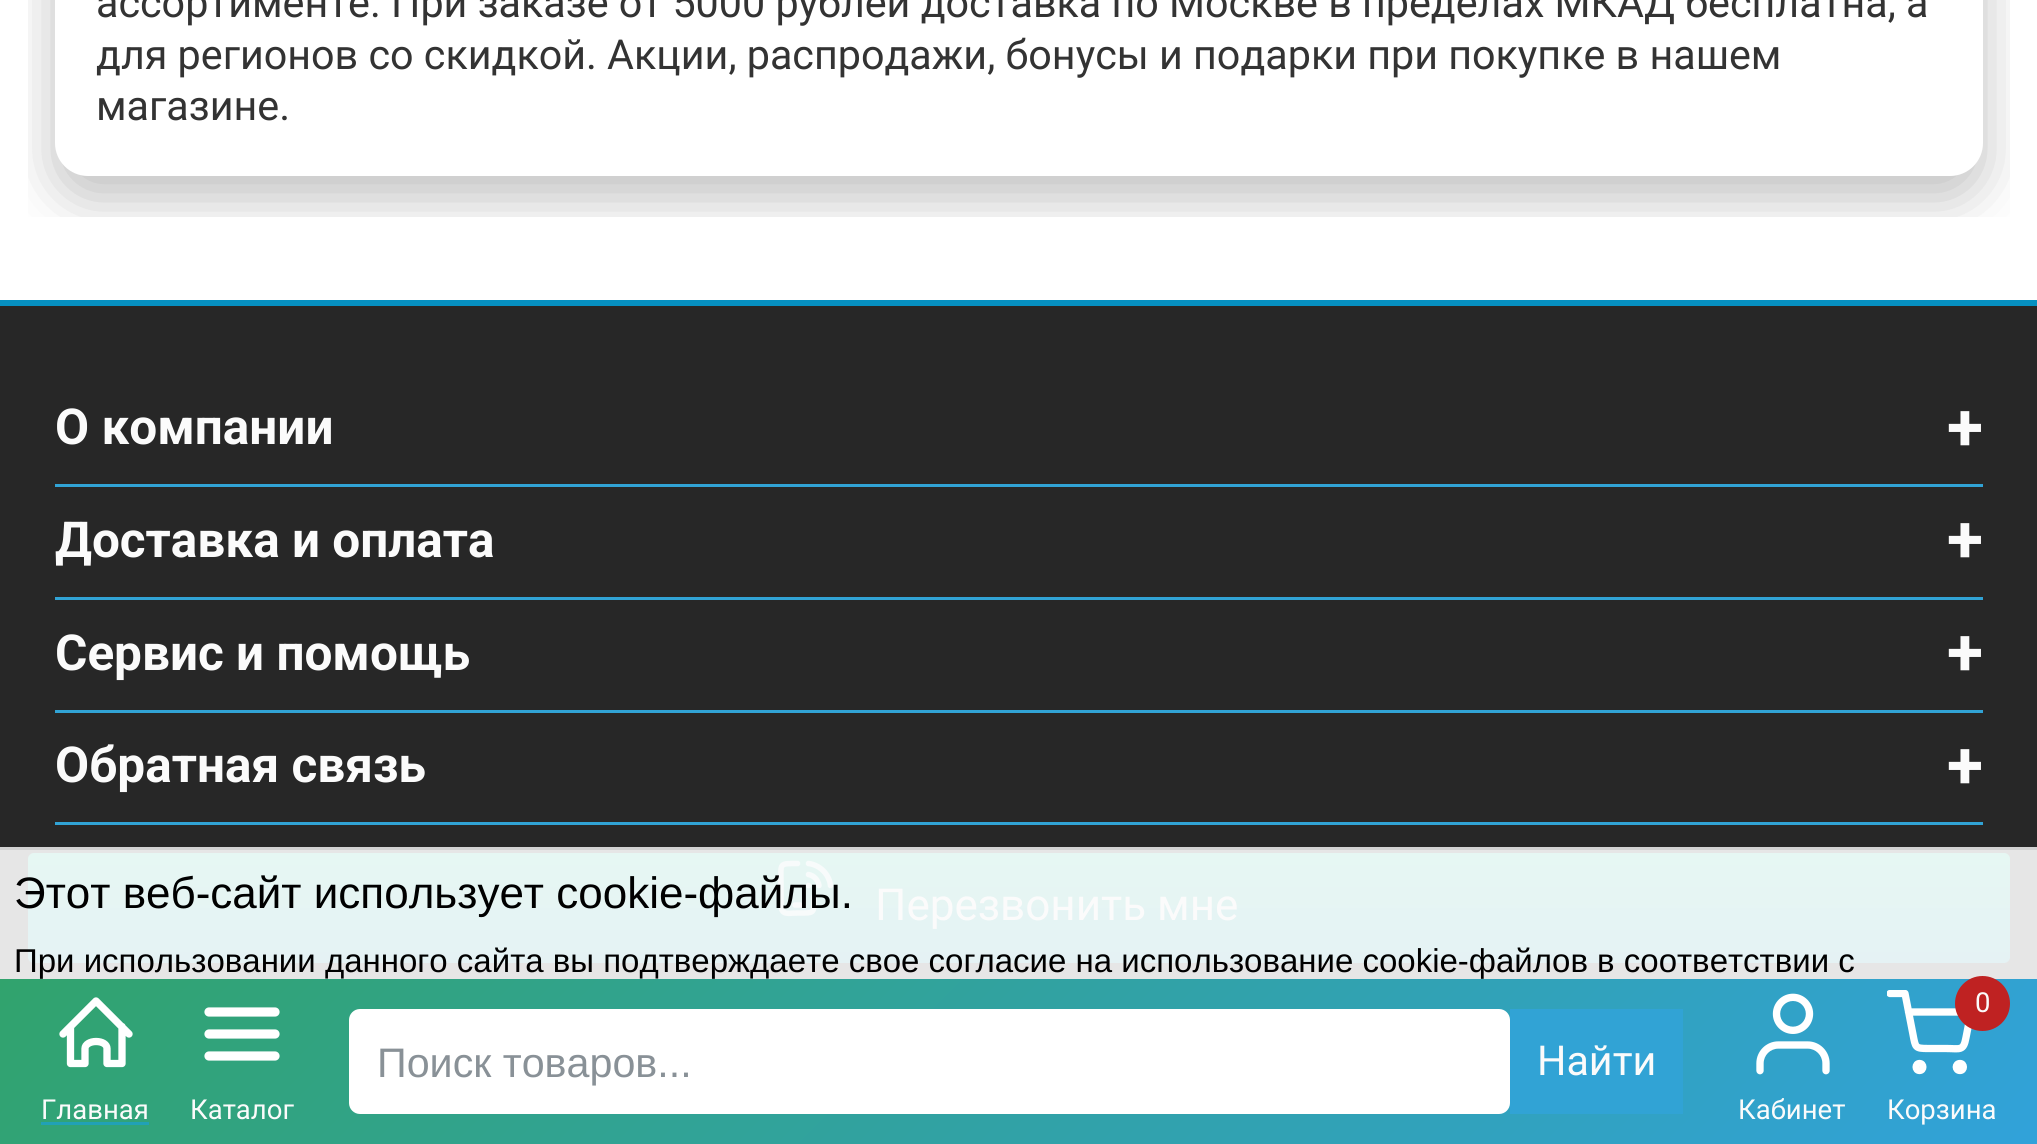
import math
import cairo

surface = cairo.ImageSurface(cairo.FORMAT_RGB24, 2037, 1144)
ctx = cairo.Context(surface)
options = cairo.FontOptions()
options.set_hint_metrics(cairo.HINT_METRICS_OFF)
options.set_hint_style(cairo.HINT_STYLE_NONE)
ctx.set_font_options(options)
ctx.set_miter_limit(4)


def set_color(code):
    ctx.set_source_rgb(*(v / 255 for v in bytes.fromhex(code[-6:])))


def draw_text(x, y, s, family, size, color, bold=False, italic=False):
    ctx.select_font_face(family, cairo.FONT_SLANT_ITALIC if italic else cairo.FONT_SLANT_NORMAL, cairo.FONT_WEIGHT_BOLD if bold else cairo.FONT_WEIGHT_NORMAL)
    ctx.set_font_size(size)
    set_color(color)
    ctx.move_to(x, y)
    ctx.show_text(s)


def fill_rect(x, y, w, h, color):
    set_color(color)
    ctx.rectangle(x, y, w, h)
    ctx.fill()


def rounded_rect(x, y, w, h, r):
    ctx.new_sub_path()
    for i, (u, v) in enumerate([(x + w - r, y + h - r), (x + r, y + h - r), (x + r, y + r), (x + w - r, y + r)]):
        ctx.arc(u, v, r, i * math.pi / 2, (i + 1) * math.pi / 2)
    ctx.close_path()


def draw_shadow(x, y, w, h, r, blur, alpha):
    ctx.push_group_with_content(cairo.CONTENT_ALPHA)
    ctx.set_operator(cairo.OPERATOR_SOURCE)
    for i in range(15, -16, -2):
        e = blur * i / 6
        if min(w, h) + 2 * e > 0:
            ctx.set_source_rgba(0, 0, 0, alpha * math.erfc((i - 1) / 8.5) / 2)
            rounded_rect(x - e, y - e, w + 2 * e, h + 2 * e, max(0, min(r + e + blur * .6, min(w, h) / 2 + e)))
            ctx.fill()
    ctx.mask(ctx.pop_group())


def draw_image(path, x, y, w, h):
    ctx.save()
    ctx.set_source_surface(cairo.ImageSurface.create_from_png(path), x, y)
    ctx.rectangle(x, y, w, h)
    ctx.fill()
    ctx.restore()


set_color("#ffffff")
ctx.paint()
ctx.save()
ctx.rectangle(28, 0, 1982, 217)
ctx.clip()
set_color("#000000")
draw_shadow(55, -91, 1928, 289, 33, 27.5, 0.25)
ctx.restore()
set_color("#ffffff")
rounded_rect(55, -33, 1928, 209, 33)
ctx.fill()
draw_text(96, 17, "ассортименте. При заказе от 5000 рублей доставка по Москве в пределах МКАД бесплатна, а", "Roboto", 41.25, "#333333")
draw_text(96, 69, "для регионов со скидкой. Акции, распродажи, бонусы и подарки при покупке в нашем", "Roboto", 41.25, "#333333")
draw_text(96, 120, "магазине.", "Roboto", 41.25, "#333333")
fill_rect(0, 306, 2037, 541, "#272727")
fill_rect(0, 850, 2037, 129, "#e6e6e6")
fill_rect(0, 300, 2037, 6, "#0690c1")
fill_rect(55, 484, 1928, 3, "#31a3d5")
draw_text(55, 444, "О компании", "Roboto", 49.5, "#fbfbfb", bold=True)
draw_text(1947, 450, "+", "Roboto", 66, "#fbfbfb", bold=True)
fill_rect(55, 597, 1928, 3, "#31a3d5")
draw_text(55, 557, "Доставка и оплата", "Roboto", 49.5, "#fbfbfb", bold=True)
draw_text(1947, 562, "+", "Roboto", 66, "#fbfbfb", bold=True)
fill_rect(55, 710, 1928, 3, "#31a3d5")
draw_text(55, 670, "Сервис и помощь", "Roboto", 49.5, "#fbfbfb", bold=True)
draw_text(1947, 675, "+", "Roboto", 66, "#fbfbfb", bold=True)
fill_rect(55, 822, 1928, 3, "#31a3d5")
draw_text(55, 782, "Обратная связь", "Roboto", 49.5, "#fbfbfb", bold=True)
draw_text(1947, 788, "+", "Roboto", 66, "#fbfbfb", bold=True)
gradient = cairo.LinearGradient(1019, 852, 1019, 963)
gradient.add_color_stop_rgba(0, 0.902, 0.969, 0.953, 1)
gradient.add_color_stop_rgba(1, 0.898, 0.949, 0.957, 1)
ctx.set_source(gradient)
rounded_rect(28, 853, 1982, 110, 6)
ctx.fill()
ctx.new_path()
ctx.move_to(795, 905)
ctx.line_to(800, 905)
ctx.move_to(814, 896.5)
ctx.curve_to(814, 914, 815, 913, 797.5, 913)
ctx.curve_to(787.5, 913, 781, 916, 781, 904)
ctx.line_to(781, 883)
ctx.curve_to(781, 863, 778.5, 863.5, 797.5, 863.5)
ctx.move_to(808.5, 874.5)
ctx.curve_to(814, 875.5, 818, 880, 819, 885.5)
ctx.move_to(808.5, 885.5)
ctx.line_to(808.5, 885.5)
ctx.move_to(808.5, 863.5)
ctx.curve_to(820, 865, 829, 874, 830.5, 885.5)
set_color("#f8fbfb")
ctx.set_line_width(5.5)
ctx.set_line_cap(cairo.LINE_CAP_ROUND)
ctx.set_line_join(cairo.LINE_JOIN_ROUND)
ctx.stroke()
draw_text(875, 920, "Перезвонить мне", "Roboto", 44, "#fbfbfb")
fill_rect(0, 847, 2037, 3, "#d2d2d2")
draw_text(14, 908, "Этот веб-сайт использует cookie-файлы.", "Liberation Sans", 44, "#000000")
draw_text(14, 972, "При использовании данного сайта вы подтверждаете свое согласие на использование cookie-файлов в соответствии с", "Liberation Sans", 33, "#000000")
gradient = cairo.LinearGradient(468, 511, 1570, 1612)
gradient.add_color_stop_rgba(0, 0.192, 0.639, 0.427, 1)
gradient.add_color_stop_rgba(1, 0.192, 0.635, 0.855, 1)
ctx.set_source(gradient)
ctx.rectangle(0, 979, 2037, 165)
ctx.fill()
set_color("#ffffff")
rounded_rect(349, 1009, 1161, 105, 11)
ctx.fill()
draw_text(377, 1077, "Поиск товаров...", "Liberation Sans", 41.25, "#899197")
fill_rect(1510, 1009, 173, 105, "#31a3d5")
draw_text(1537, 1075, "Найти", "Roboto", 41.25, "#fbfbfb")
ctx.new_path()
ctx.move_to(1919.5, 1070.5)
ctx.curve_to(1924, 1070.5, 1924, 1063.5, 1919.5, 1063.5)
ctx.curve_to(1915, 1063.5, 1915, 1070.5, 1919.5, 1070.5)
ctx.close_path()
ctx.move_to(1960, 1070.5)
ctx.curve_to(1964.5, 1070.5, 1964.5, 1063.5, 1960, 1063.5)
ctx.curve_to(1955, 1063.5, 1955, 1070.5, 1960, 1070.5)
ctx.close_path()
set_color("#ffffff")
ctx.set_line_width(7.3)
ctx.stroke()
ctx.save()
ctx.rectangle(1887, 990, 88, 88)
ctx.clip()
ctx.new_path()
ctx.move_to(1890, 993.5)
ctx.line_to(1905, 993.5)
ctx.line_to(1913, 1034.5)
ctx.curve_to(1915.5, 1047.5, 1915, 1048.5, 1928, 1048.5)
ctx.line_to(1946, 1048.5)
ctx.curve_to(1960, 1048.5, 1963.5, 1051.5, 1966, 1037.5)
ctx.line_to(1971, 1012)
ctx.line_to(1908.5, 1012)
ctx.stroke()
ctx.restore()
set_color("#bf2222")
ctx.arc(1982.5, 1003.5, 27.5, 0, 2 * math.pi)
ctx.fill()
draw_text(1975, 1012, "0", "Roboto", 27.5, "#fbfbfb")
draw_text(1887, 1119, "Корзина", "Roboto", 27.5, "#fbfbfb")
ctx.new_path()
ctx.move_to(63, 1034)
ctx.line_to(96, 1001)
ctx.line_to(129, 1034)
ctx.move_to(70.5, 1026.5)
ctx.line_to(70.5, 1063.5)
ctx.line_to(85, 1063.5)
ctx.line_to(85, 1048.5)
ctx.curve_to(85, 1044.5, 90, 1041.5, 96, 1041.5)
ctx.curve_to(102.5, 1041.5, 107, 1044.5, 107, 1048.5)
ctx.line_to(107, 1063.5)
ctx.line_to(122, 1063.5)
ctx.line_to(122, 1026.5)
set_color("#ffffff")
ctx.stroke()
draw_text(41, 1119, "Главная", "Roboto", 27.5, "#fbfbfb")
fill_rect(41, 1122, 108, 3, "#21a1b6")
ctx.new_path()
ctx.move_to(209, 1012)
ctx.line_to(275, 1012)
ctx.move_to(209, 1034)
ctx.line_to(275, 1034)
ctx.move_to(209, 1056)
ctx.line_to(275, 1056)
set_color("#ffffff")
ctx.set_line_width(9.2)
ctx.stroke()
draw_text(190, 1119, "Каталог", "Roboto", 27.5, "#fbfbfb")
draw_image("assets/img1.png", 1756, 993, 74, 82)
draw_text(1738, 1119, "Кабинет", "Roboto", 27.5, "#fbfbfb")
surface.write_to_png("output.png")
